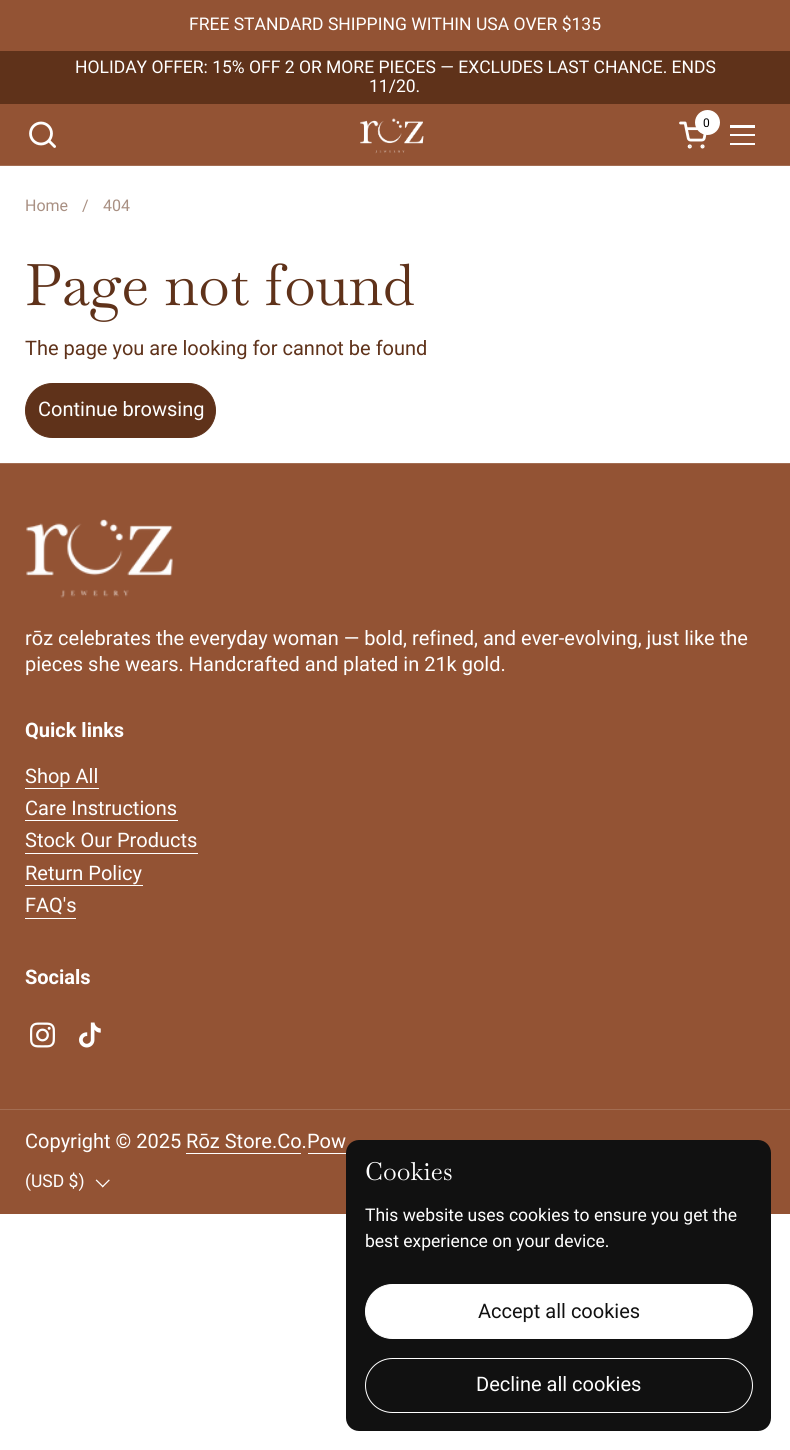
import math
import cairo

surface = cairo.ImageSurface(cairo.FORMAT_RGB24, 790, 1450)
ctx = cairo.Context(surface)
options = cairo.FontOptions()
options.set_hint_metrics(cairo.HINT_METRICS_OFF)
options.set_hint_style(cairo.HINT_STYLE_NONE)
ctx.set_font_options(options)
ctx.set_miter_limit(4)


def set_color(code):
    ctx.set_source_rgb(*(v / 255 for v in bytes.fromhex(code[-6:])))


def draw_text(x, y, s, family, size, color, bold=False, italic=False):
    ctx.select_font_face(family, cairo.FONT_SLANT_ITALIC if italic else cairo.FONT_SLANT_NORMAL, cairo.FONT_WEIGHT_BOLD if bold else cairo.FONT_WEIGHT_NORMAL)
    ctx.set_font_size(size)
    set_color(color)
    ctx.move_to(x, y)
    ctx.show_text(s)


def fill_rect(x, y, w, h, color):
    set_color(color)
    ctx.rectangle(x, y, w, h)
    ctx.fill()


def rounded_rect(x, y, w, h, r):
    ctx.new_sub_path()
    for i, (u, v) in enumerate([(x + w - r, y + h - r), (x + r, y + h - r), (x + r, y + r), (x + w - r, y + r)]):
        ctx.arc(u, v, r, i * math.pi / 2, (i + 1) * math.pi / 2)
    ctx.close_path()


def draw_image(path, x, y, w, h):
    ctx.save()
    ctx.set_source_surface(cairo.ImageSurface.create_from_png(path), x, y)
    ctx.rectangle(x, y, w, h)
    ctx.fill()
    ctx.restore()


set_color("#ffffff")
ctx.paint()
fill_rect(0, 0, 790, 51, "#935334")
draw_text(189, 30, "FREE STANDARD SHIPPING WITHIN USA OVER $135", "Roboto", 17.5, "#ffffff")
fill_rect(0, 51, 790, 53, "#5f321a")
draw_text(75, 73, "HOLIDAY OFFER: 15% OFF 2 OR MORE PIECES — EXCLUDES LAST CHANCE. ENDS", "Roboto", 17.5, "#ffffff")
draw_text(369, 92, "11/20.", "Roboto", 17.5, "#ffffff")
fill_rect(0, 104, 790, 61, "#935334")
draw_image("assets/img1.png", 29, 121, 27, 27)
draw_image("assets/img2.png", 360, 118, 64, 36)
set_color("#ffffff")
ctx.arc(707.5, 122.5, 12.5, 0, 2 * math.pi)
ctx.fill()
draw_text(703, 127, "0", "Roboto", 12, "#000000")
draw_image("assets/img3.png", 679, 121, 28, 28)
fill_rect(730, 125, 25, 3, "#ffffff")
fill_rect(730, 134, 25, 2, "#ffffff")
fill_rect(730, 143, 25, 2, "#ffffff")
fill_rect(0, 165, 790, 1, "#a36d52")
draw_text(25, 211, "Home", "Roboto", 16, "#a99083")
draw_text(82, 211, "/", "Roboto", 16, "#a99083")
draw_text(103, 211, "404", "Roboto", 16, "#a99083")
draw_text(25, 305, "Page not found", "Baskervville", 57.5, "#5f321a")
draw_text(25, 355, "The page you are looking for cannot be found", "Roboto", 20, "#5f321a")
rounded_rect(25.5, 383.5, 190, 54, 27)
ctx.fill_preserve()
ctx.set_line_width(1)
ctx.stroke()
draw_text(38, 416, "Continue browsing", "Roboto", 20, "#ffffff")
fill_rect(0, 464, 790, 750, "#935334")
fill_rect(0, 463, 790, 1, "#a36d52")
draw_image("assets/img4.png", 26, 519, 147, 79)
draw_text(25, 645, "rōz celebrates the everyday woman — bold, refined, and ever-evolving, just like the", "Roboto", 20, "#ffffff")
draw_text(25, 671, "pieces she wears. Handcrafted and plated in 21k gold.", "Roboto", 20, "#ffffff")
draw_text(25, 737, "Quick links", "Roboto", 20, "#ffffff", bold=True)
draw_text(25, 783, "Shop All", "Roboto", 20, "#ffffff")
fill_rect(25, 788, 74, 1, "#ffffff")
draw_text(25, 815, "Care Instructions", "Roboto", 20, "#ffffff")
fill_rect(25, 820, 153, 1, "#ffffff")
draw_text(25, 847, "Stock Our Products", "Roboto", 20, "#ffffff")
fill_rect(25, 853, 173, 1, "#ffffff")
draw_text(25, 880, "Return Policy", "Roboto", 20, "#ffffff")
fill_rect(25, 885, 118, 1, "#ffffff")
draw_text(25, 912, "FAQ's", "Roboto", 20, "#ffffff")
fill_rect(25, 918, 51, 1, "#ffffff")
draw_text(25, 984, "Socials", "Roboto", 20, "#ffffff", bold=True)
draw_image("assets/img5.png", 30, 1022, 25, 26)
draw_image("assets/img6.png", 79, 1022, 22, 26)
fill_rect(0, 1109, 790, 1, "#a36d52")
draw_text(25, 1148, "Copyright © 2025 Rōz Store.Co.Pow", "Roboto", 20, "#ffffff")
fill_rect(186, 1153, 115, 1, "#ffffff")
fill_rect(308, 1153, 38, 1, "#ffffff")
draw_text(25, 1187, "(USD $)", "Roboto", 17.5, "#ffffff")
draw_image("assets/img7.png", 95, 1179, 15, 9)
set_color("#111111")
rounded_rect(346, 1140, 425, 291, 13)
ctx.fill()
draw_text(365, 1180, "Cookies", "Baskervville", 25, "#ffffff")
draw_text(365, 1221, "This website uses cookies to ensure you get the", "Roboto", 17.5, "#ffffff")
draw_text(365, 1247, "best experience on your device.", "Roboto", 17.5, "#ffffff")
rounded_rect(365.5, 1284.5, 387, 54, 27)
ctx.fill_preserve()
ctx.stroke()
draw_text(478, 1318, "Accept all cookies", "Roboto", 20, "#111111")
rounded_rect(365.5, 1358.5, 387, 54, 27)
set_color("#ffffff")
ctx.stroke()
draw_text(476, 1391, "Decline all cookies", "Roboto", 20, "#ffffff")
surface.write_to_png("output.png")
